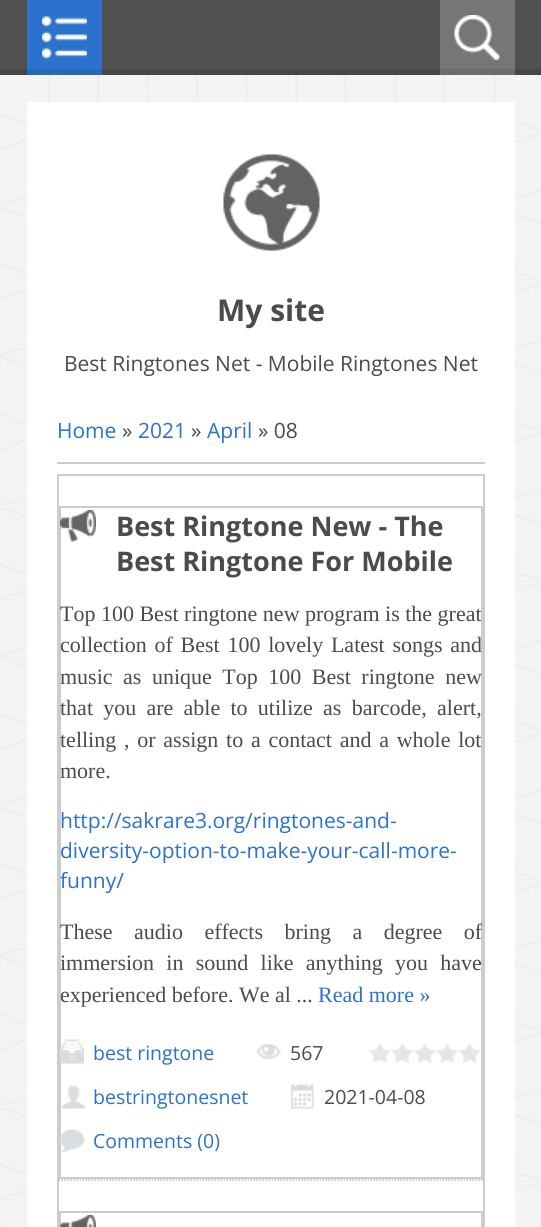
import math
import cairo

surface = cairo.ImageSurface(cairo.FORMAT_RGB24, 541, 1227)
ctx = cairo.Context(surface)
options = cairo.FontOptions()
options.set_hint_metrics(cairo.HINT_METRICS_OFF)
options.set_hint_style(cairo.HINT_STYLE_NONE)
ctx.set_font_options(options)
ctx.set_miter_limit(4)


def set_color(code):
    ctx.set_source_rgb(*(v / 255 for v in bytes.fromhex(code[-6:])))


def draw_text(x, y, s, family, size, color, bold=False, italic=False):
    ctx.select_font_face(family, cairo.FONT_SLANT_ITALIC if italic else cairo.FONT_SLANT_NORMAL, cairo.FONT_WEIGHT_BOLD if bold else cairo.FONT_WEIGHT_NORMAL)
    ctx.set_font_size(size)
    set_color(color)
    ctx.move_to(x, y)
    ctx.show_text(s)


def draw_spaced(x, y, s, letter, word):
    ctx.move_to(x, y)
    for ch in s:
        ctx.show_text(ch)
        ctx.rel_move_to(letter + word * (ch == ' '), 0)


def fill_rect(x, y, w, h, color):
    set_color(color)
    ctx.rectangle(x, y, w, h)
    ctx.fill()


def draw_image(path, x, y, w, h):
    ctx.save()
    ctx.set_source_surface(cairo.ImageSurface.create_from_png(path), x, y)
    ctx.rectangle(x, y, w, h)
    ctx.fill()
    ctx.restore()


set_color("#ffffff")
ctx.paint()
draw_image("assets/img1.png", 0, 75, 541, 1152)
fill_rect(0, 0, 541, 69, "#515151")
fill_rect(0, 69, 541, 6, "#464646")
fill_rect(27, 0, 75, 69, "#2a72cc")
draw_image("assets/img2.png", 42, 16, 45, 43)
fill_rect(27, 69, 75, 6, "#2668ba")
fill_rect(440, 0, 75, 69, "#767676")
draw_image("assets/img3.png", 454, 15, 46, 45)
fill_rect(440, 69, 75, 6, "#6b6b6b")
fill_rect(27, 102, 488, 1125, "#ffffff")
draw_image("assets/img4.png", 223, 154, 97, 97)
draw_text(217, 321, "My site", "Open Sans", 30, "#4b4b4b", bold=True)
draw_text(64, 371, "Best Ringtones Net - Mobile Ringtones Net", "Open Sans", 21, "#4b4b4b")
draw_text(57, 438, "Home", "Open Sans", 21, "#2a72cc")
draw_text(122, 438, "»", "Open Sans", 21, "#4b4b4b")
draw_text(138, 438, "2021", "Open Sans", 21, "#2a72cc")
draw_text(191, 438, "»", "Open Sans", 21, "#4b4b4b")
draw_text(207, 438, "April", "Open Sans", 21, "#2a72cc")
draw_text(258, 438, "» 08", "Open Sans", 21, "#4b4b4b")
fill_rect(57, 462, 428, 2, "#cccccc")
ctx.rectangle(58, 475, 426, 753)
ctx.stroke()
ctx.new_path()
ctx.move_to(58.5, 1180)
ctx.line_to(483, 1180)
set_color("#bbbbbb")
ctx.set_line_width(1.5)
ctx.set_dash([1.5, 1.5])
ctx.stroke()
ctx.rectangle(60, 507, 422, 671)
set_color("#cccccc")
ctx.set_line_width(2)
ctx.set_dash([])
ctx.stroke()
draw_image("assets/img5.png", 60, 510, 36, 32)
draw_text(116, 536, "Best Ringtone New - The", "Open Sans", 27, "#4b4b4b", bold=True)
draw_text(116, 571, "Best Ringtone For Mobile", "Open Sans", 27, "#4b4b4b", bold=True)
draw_text(60, 621, "Top 100 Best ringtone new program is the great", "Liberation Serif", 22, "#4b4b4b")
draw_spaced(60, 652, "collection of Best 100 lovely Latest songs and", 0, 2.25)
draw_spaced(60, 684, "music as unique Top 100 Best ringtone new", 0, 5)
draw_spaced(60, 715, "that you are able to utilize as barcode, alert,", 0, 4.75)
draw_spaced(60, 747, "telling , or assign to a contact and a whole lot", 0, 2.25)
draw_text(60, 778, "more.", "Liberation Serif", 22, "#4b4b4b")
draw_text(60, 828, "http://sakrare3.org/ringtones-and-", "Open Sans", 21, "#2a72cc")
draw_text(60, 858, "diversity-option-to-make-your-call-more-", "Open Sans", 21, "#2a72cc")
draw_text(60, 888, "funny/", "Open Sans", 21, "#2a72cc")
ctx.select_font_face("Liberation Serif")
ctx.set_font_size(22)
set_color("#4b4b4b")
draw_spaced(60, 939, "These audio effects bring a degree of", 0, 16)
draw_spaced(60, 970, "immersion in sound like anything you have", 0, 6.75)
draw_text(60, 1002, "experienced before. We al ...", "Liberation Serif", 22, "#4b4b4b")
draw_text(318, 1002, "Read more »", "Liberation Serif", 22, "#2a72cc")
draw_image("assets/img6.png", 60, 1039, 24, 25)
draw_text(93, 1060, "best ringtone", "Open Sans", 19.5, "#2a72cc")
draw_image("assets/img7.png", 256, 1044, 25, 15)
draw_text(290, 1060, "567", "Open Sans", 19.5, "#4b4b4b")
draw_image("assets/img8.png", 369, 1043, 113, 20)
draw_image("assets/img9.png", 61, 1086, 25, 23)
draw_text(93, 1104, "bestringtonesnet", "Open Sans", 19.5, "#2a72cc")
draw_image("assets/img10.png", 291, 1084, 23, 25)
draw_text(324, 1104, "2021-04-08", "Open Sans", 19.5, "#4b4b4b")
draw_image("assets/img11.png", 60, 1129, 24, 23)
draw_text(93, 1148, "Comments (0)", "Open Sans", 19.5, "#2a72cc")
ctx.rectangle(60, 1212, 422, 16)
set_color("#cccccc")
ctx.stroke()
draw_image("assets/img12.png", 60, 1215, 36, 12)
surface.write_to_png("output.png")
